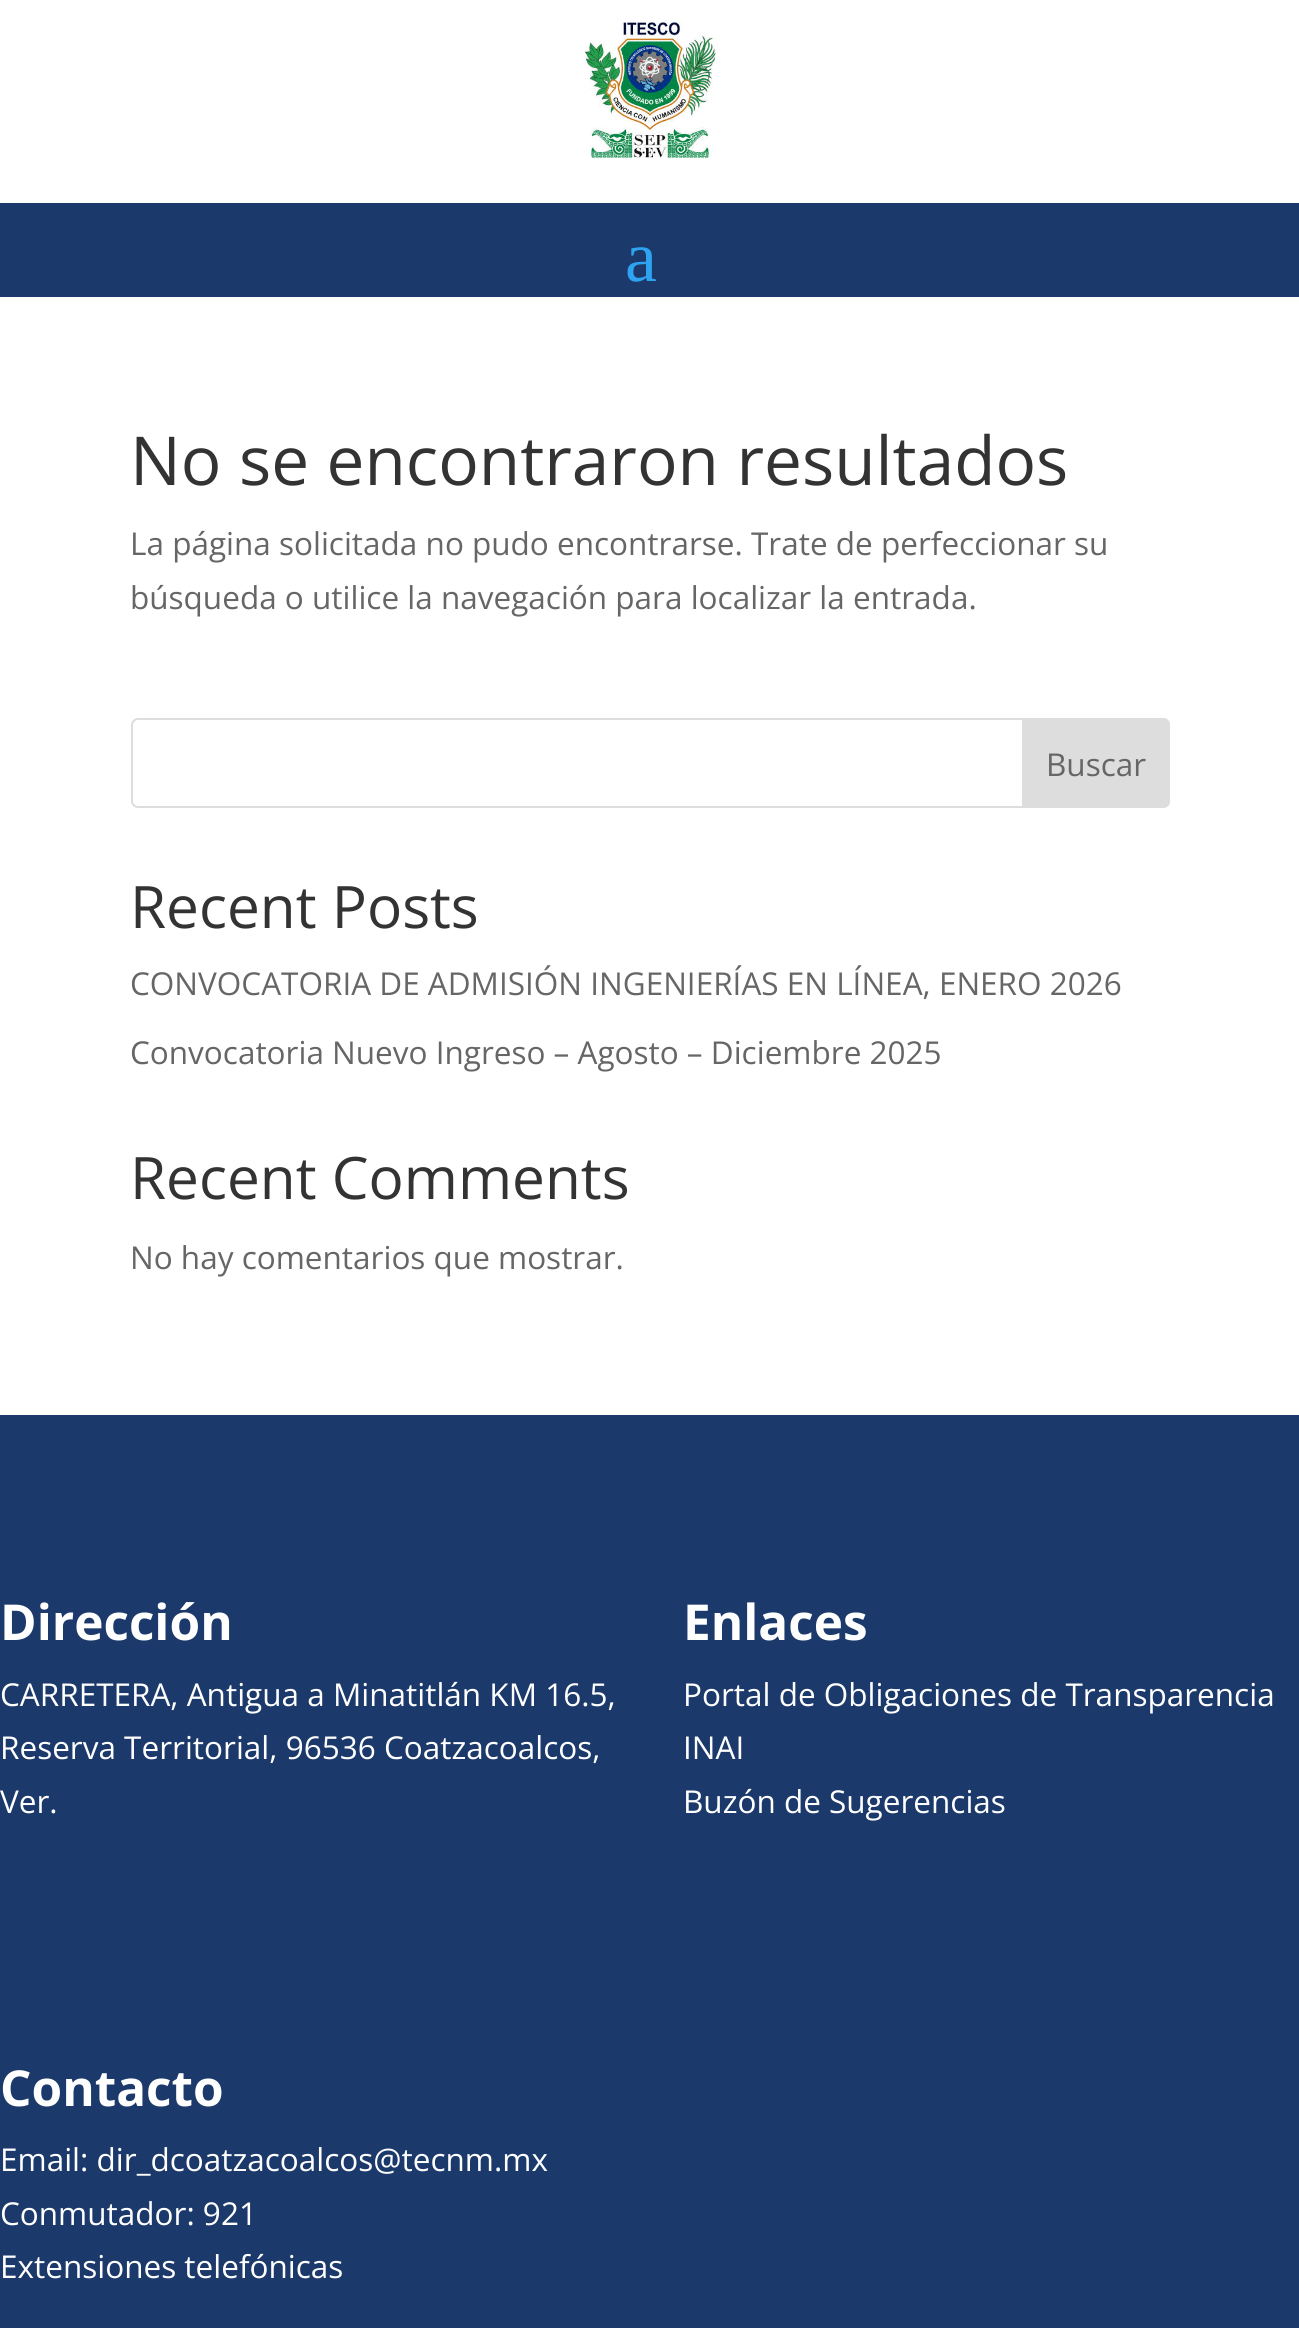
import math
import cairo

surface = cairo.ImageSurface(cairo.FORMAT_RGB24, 1299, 2328)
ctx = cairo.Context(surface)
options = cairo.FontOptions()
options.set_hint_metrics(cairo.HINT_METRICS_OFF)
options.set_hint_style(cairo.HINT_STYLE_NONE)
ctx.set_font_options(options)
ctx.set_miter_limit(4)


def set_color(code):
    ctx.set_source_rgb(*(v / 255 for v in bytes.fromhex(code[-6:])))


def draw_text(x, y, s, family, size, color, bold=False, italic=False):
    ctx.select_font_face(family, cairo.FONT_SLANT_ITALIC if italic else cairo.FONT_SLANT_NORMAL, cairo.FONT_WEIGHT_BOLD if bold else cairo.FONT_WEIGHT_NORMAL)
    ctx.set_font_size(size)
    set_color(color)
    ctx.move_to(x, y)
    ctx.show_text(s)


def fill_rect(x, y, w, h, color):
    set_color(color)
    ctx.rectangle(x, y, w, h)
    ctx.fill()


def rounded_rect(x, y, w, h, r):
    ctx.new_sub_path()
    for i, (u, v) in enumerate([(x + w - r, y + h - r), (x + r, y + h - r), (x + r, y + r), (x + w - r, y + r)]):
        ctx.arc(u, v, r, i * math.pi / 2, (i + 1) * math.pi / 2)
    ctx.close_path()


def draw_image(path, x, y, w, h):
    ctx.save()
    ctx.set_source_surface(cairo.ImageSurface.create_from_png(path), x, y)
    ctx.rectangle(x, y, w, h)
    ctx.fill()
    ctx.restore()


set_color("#ffffff")
ctx.paint()
draw_image("assets/img1.png", 585, 22, 131, 136)
fill_rect(0, 203, 1299, 94, "#1b396a")
draw_text(625, 281, "a", "Liberation Serif", 72, "#2ea3f2")
draw_text(130, 485, "No se encontraron resultados", "Open Sans", 67.5, "#333333")
draw_text(130, 555, "La página solicitada no pudo encontrarse. Trate de perfeccionar su", "Open Sans", 31.5, "#666666")
draw_text(130, 609, "búsqueda o utilice la navegación para localizar la entrada.", "Open Sans", 31.5, "#666666")
rounded_rect(132, 719, 1037, 88, 6)
set_color("#dddddd")
ctx.stroke()
ctx.new_path()
ctx.move_to(1023, 719)
ctx.line_to(1163, 719)
ctx.curve_to(1166.5, 719, 1169, 721.5, 1169, 725)
ctx.line_to(1169, 801)
ctx.curve_to(1169, 804.5, 1166.5, 807, 1163, 807)
ctx.line_to(1023, 807)
ctx.close_path()
ctx.fill_preserve()
ctx.stroke()
draw_text(1046, 776, "Buscar", "Open Sans", 31.5, "#666666")
draw_text(130, 928, "Recent Posts", "Open Sans", 58.5, "#333333")
draw_text(130, 995, "CONVOCATORIA DE ADMISIÓN INGENIERÍAS EN LÍNEA, ENERO 2026", "Open Sans", 31.5, "#666666")
draw_text(130, 1064, "Convocatoria Nuevo Ingreso – Agosto – Diciembre 2025", "Open Sans", 31.5, "#666666")
draw_text(130, 1199, "Recent Comments", "Open Sans", 58.5, "#333333")
draw_text(130, 1269, "No hay comentarios que mostrar.", "Open Sans", 31.5, "#666666")
fill_rect(0, 1415, 1299, 913, "#1b396a")
draw_text(0, 1640, "Dirección", "Open Sans", 49.5, "#ffffff", bold=True)
draw_text(0, 1706, "CARRETERA, Antigua a Minatitlán KM 16.5,", "Open Sans", 31.5, "#ffffff")
draw_text(0, 1759, "Reserva Territorial, 96536 Coatzacoalcos,", "Open Sans", 31.5, "#ffffff")
draw_text(0, 1813, "Ver.", "Open Sans", 31.5, "#ffffff")
draw_text(683, 1640, "Enlaces", "Open Sans", 49.5, "#ffffff", bold=True)
draw_text(683, 1706, "Portal de Obligaciones de Transparencia", "Open Sans", 31.5, "#ffffff")
draw_text(683, 1759, "INAI", "Open Sans", 31.5, "#ffffff")
draw_text(683, 1813, "Buzón de Sugerencias", "Open Sans", 31.5, "#ffffff")
draw_text(0, 2106, "Contacto", "Open Sans", 49.5, "#ffffff", bold=True)
draw_text(0, 2171, "Email: dir_dcoatzacoalcos@tecnm.mx", "Open Sans", 31.5, "#ffffff")
draw_text(0, 2225, "Conmutador: 921", "Open Sans", 31.5, "#ffffff")
draw_text(0, 2278, "Extensiones telefónicas", "Open Sans", 31.5, "#ffffff")
surface.write_to_png("output.png")
